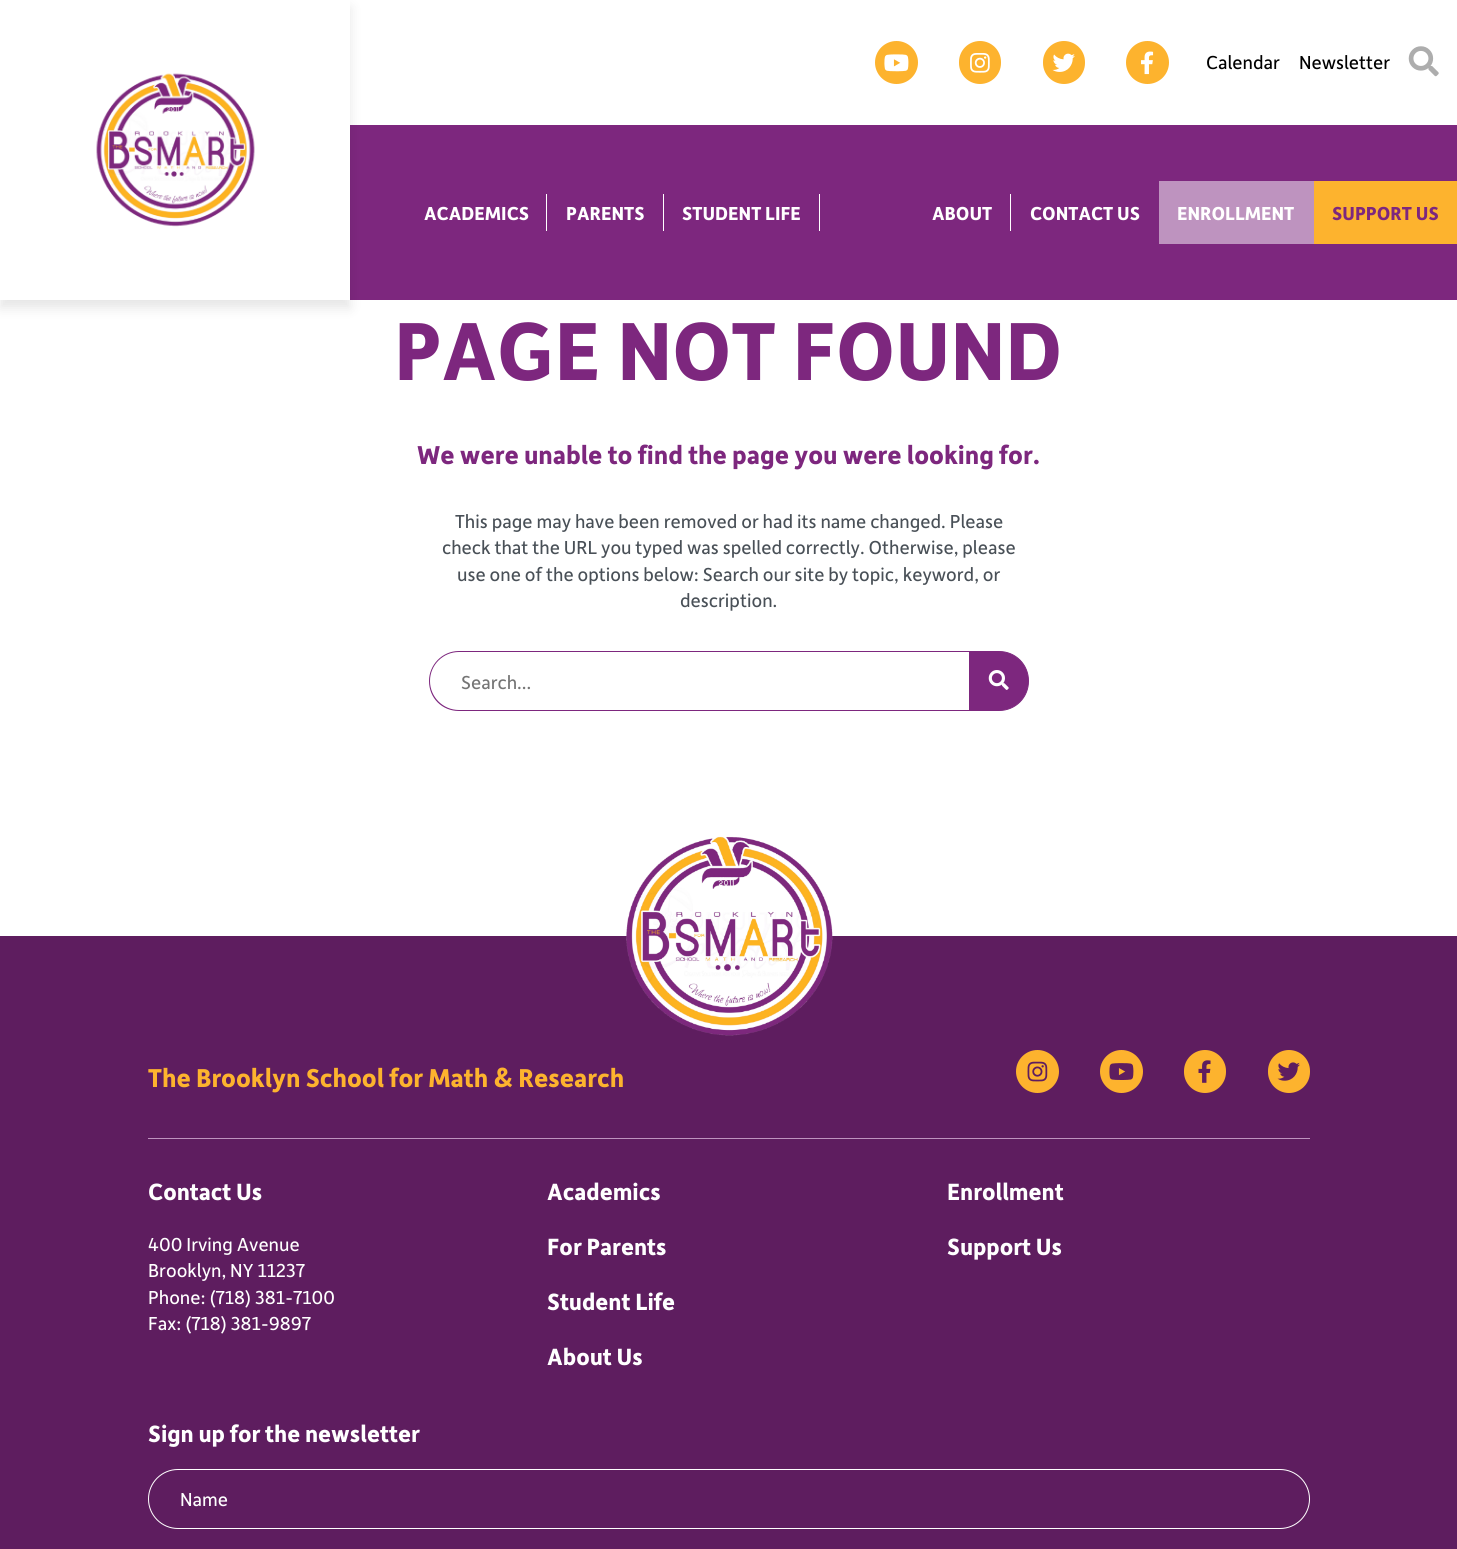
import math
import cairo

surface = cairo.ImageSurface(cairo.FORMAT_RGB24, 1457, 1549)
ctx = cairo.Context(surface)
options = cairo.FontOptions()
options.set_hint_metrics(cairo.HINT_METRICS_OFF)
options.set_hint_style(cairo.HINT_STYLE_NONE)
ctx.set_font_options(options)
ctx.set_miter_limit(4)


def set_color(code):
    ctx.set_source_rgb(*(v / 255 for v in bytes.fromhex(code[-6:])))


def draw_text(x, y, s, family, size, color, bold=False, italic=False):
    ctx.select_font_face(family, cairo.FONT_SLANT_ITALIC if italic else cairo.FONT_SLANT_NORMAL, cairo.FONT_WEIGHT_BOLD if bold else cairo.FONT_WEIGHT_NORMAL)
    ctx.set_font_size(size)
    set_color(color)
    ctx.move_to(x, y)
    ctx.show_text(s)


def fill_rect(x, y, w, h, color):
    set_color(color)
    ctx.rectangle(x, y, w, h)
    ctx.fill()


def rounded_rect(x, y, w, h, r):
    ctx.new_sub_path()
    for i, (u, v) in enumerate([(x + w - r, y + h - r), (x + r, y + h - r), (x + r, y + r), (x + w - r, y + r)]):
        ctx.arc(u, v, r, i * math.pi / 2, (i + 1) * math.pi / 2)
    ctx.close_path()


def draw_shadow(x, y, w, h, r, blur, alpha):
    ctx.push_group_with_content(cairo.CONTENT_ALPHA)
    ctx.set_operator(cairo.OPERATOR_SOURCE)
    for i in range(15, -16, -2):
        e = blur * i / 6
        if min(w, h) + 2 * e > 0:
            ctx.set_source_rgba(0, 0, 0, alpha * math.erfc((i - 1) / 8.5) / 2)
            rounded_rect(x - e, y - e, w + 2 * e, h + 2 * e, max(0, min(r + e + blur * .6, min(w, h) / 2 + e)))
            ctx.fill()
    ctx.mask(ctx.pop_group())


def draw_image(path, x, y, w, h):
    ctx.save()
    ctx.set_source_surface(cairo.ImageSurface.create_from_png(path), x, y)
    ctx.rectangle(x, y, w, h)
    ctx.fill()
    ctx.restore()


set_color("#ffffff")
ctx.paint()
fill_rect(350, 125, 1107, 175, "#7d277e")
ctx.save()
ctx.set_fill_rule(cairo.FILL_RULE_EVEN_ODD)
ctx.new_path()
ctx.move_to(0, 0)
ctx.line_to(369, 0)
ctx.line_to(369, 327)
ctx.line_to(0, 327)
ctx.close_path()
ctx.move_to(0, 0)
ctx.line_to(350, 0)
ctx.line_to(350, 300)
ctx.line_to(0, 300)
ctx.close_path()
ctx.clip()
set_color("#000000")
draw_shadow(0, 8, 350, 300, 0, 6, 0.1)
ctx.restore()
draw_image("assets/img1.png", 96, 73, 159, 154)
set_color("#fdb32e")
ctx.arc(896.5, 62.5, 21.5, 0, 2 * math.pi)
ctx.fill()
draw_image("assets/img2.png", 884, 54, 25, 18)
rounded_rect(959, 41, 42, 43, 21)
ctx.fill()
draw_image("assets/img3.png", 970, 53, 20, 20)
rounded_rect(1043, 41, 42, 43, 21)
ctx.fill()
draw_image("assets/img4.png", 1052, 53, 23, 19)
ctx.arc(1147.5, 62.5, 21.5, 0, 2 * math.pi)
ctx.fill()
draw_image("assets/img5.png", 1141, 51, 13, 24)
draw_text(1206, 69, "Calendar", "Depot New", 20, "#000000")
draw_text(1299, 69, "Newsletter", "Depot New", 20, "#000000")
draw_image("assets/img6.png", 1408, 46, 31, 31)
draw_text(424, 220, "ACADEMICS", "Depot New", 20, "#ffffff", bold=True)
fill_rect(546, 194, 1, 37, "#ffffff")
draw_text(566, 220, "PARENTS", "Depot New", 20, "#ffffff", bold=True)
fill_rect(663, 194, 1, 37, "#ffffff")
draw_text(682, 220, "STUDENT LIFE", "Depot New", 20, "#ffffff", bold=True)
fill_rect(819, 194, 1, 37, "#ffffff")
draw_text(932, 220, "ABOUT", "Depot New", 20, "#ffffff", bold=True)
fill_rect(1010, 194, 1, 37, "#ffffff")
draw_text(1030, 220, "CONTACT US", "Depot New", 20, "#ffffff", bold=True)
fill_rect(1159, 181, 155, 63, "#be93bf")
draw_text(1177, 220, "ENROLLMENT", "Depot New", 20, "#ffffff", bold=True)
fill_rect(1314, 181, 143, 63, "#fdb32e")
draw_text(1332, 220, "SUPPORT US", "Depot New", 20, "#7d277e", bold=True)
draw_text(394, 380, "PAGE NOT FOUND", "Depot New", 87.5, "#7d277e", bold=True)
draw_text(417, 464, "We were unable to find the page you were looking for.", "Depot New", 27.5, "#7d277e", bold=True)
draw_text(455, 528, "This page may have been removed or had its name changed. Please", "Depot New", 20, "#495057")
draw_text(442, 554, "check that the URL you typed was spelled correctly. Otherwise, please", "Depot New", 20, "#495057")
draw_text(457, 581, "use one of the options below: Search our site by topic, keyword, or", "Depot New", 20, "#495057")
draw_text(680, 607, "description.", "Depot New", 20, "#495057")
set_color("#7d277e")
ctx.set_fill_rule(cairo.FILL_RULE_EVEN_ODD)
ctx.new_path()
ctx.move_to(459, 651)
ctx.line_to(969, 651)
ctx.line_to(969, 711)
ctx.line_to(459, 711)
ctx.curve_to(442, 711, 429, 698, 429, 681)
ctx.curve_to(429, 665, 442, 651, 459, 651)
ctx.close_path()
ctx.move_to(459, 652)
ctx.line_to(969, 652)
ctx.line_to(969, 710)
ctx.line_to(459, 710)
ctx.curve_to(443, 710, 430, 697, 430, 681)
ctx.curve_to(430, 665, 443, 652, 459, 652)
ctx.close_path()
ctx.fill()
draw_text(461, 689, "Search...", "Depot New", 20, "#757575")
set_color("#7d277e")
ctx.new_path()
ctx.move_to(969.5, 651.5)
ctx.line_to(999, 651.5)
ctx.curve_to(1015.5, 651.5, 1028.5, 664.5, 1028.5, 681)
ctx.curve_to(1028.5, 697.5, 1015.5, 710.5, 999, 710.5)
ctx.line_to(969.5, 710.5)
ctx.close_path()
ctx.fill_preserve()
ctx.set_line_width(1)
ctx.stroke()
draw_image("assets/img7.png", 988, 670, 21, 20)
fill_rect(0, 936, 1457, 613, "#5e1d5f")
draw_image("assets/img8.png", 626, 836, 207, 200)
fill_rect(148, 1138, 1162, 1, "#be93bf")
draw_text(148, 1087, "The Brooklyn School for Math & Research", "Depot New", 27.5, "#fdb32e", bold=True)
ctx.new_path()
ctx.arc(1037.5, 1071.5, 21.5, 0, 2 * math.pi)
ctx.fill()
draw_image("assets/img9.png", 1027, 1061, 21, 21)
ctx.arc(1121.5, 1071.5, 21.5, 0, 2 * math.pi)
ctx.fill()
draw_image("assets/img10.png", 1109, 1063, 25, 17)
rounded_rect(1184, 1050, 42, 43, 21)
ctx.fill()
draw_image("assets/img11.png", 1198, 1060, 13, 23)
rounded_rect(1268, 1050, 42, 43, 21)
ctx.fill()
draw_image("assets/img12.png", 1277, 1062, 23, 19)
draw_text(148, 1200, "Contact Us", "Depot New", 25, "#ffffff", bold=True)
draw_text(148, 1251, "400 Irving Avenue", "Depot New", 20, "#ffffff")
draw_text(148, 1277, "Brooklyn, NY 11237", "Depot New", 20, "#ffffff")
draw_text(148, 1304, "Phone: (718) 381-7100", "Depot New", 20, "#ffffff")
draw_text(148, 1330, "Fax: (718) 381-9897", "Depot New", 20, "#ffffff")
draw_text(547, 1200, "Academics", "Depot New", 25, "#ffffff", bold=True)
draw_text(547, 1255, "For Parents", "Depot New", 25, "#ffffff", bold=True)
draw_text(547, 1310, "Student Life", "Depot New", 25, "#ffffff", bold=True)
draw_text(547, 1365, "About Us", "Depot New", 25, "#ffffff", bold=True)
draw_text(947, 1200, "Enrollment", "Depot New", 25, "#ffffff", bold=True)
draw_text(947, 1255, "Support Us", "Depot New", 25, "#ffffff", bold=True)
draw_text(148, 1442, "Sign up for the newsletter", "Depot New", 25, "#ffffff", bold=True)
rounded_rect(148.5, 1469.5, 1161, 59, 29.5)
ctx.stroke()
draw_text(180, 1506, "Name", "Depot New", 20, "#ffffff")
surface.write_to_png("output.png")
